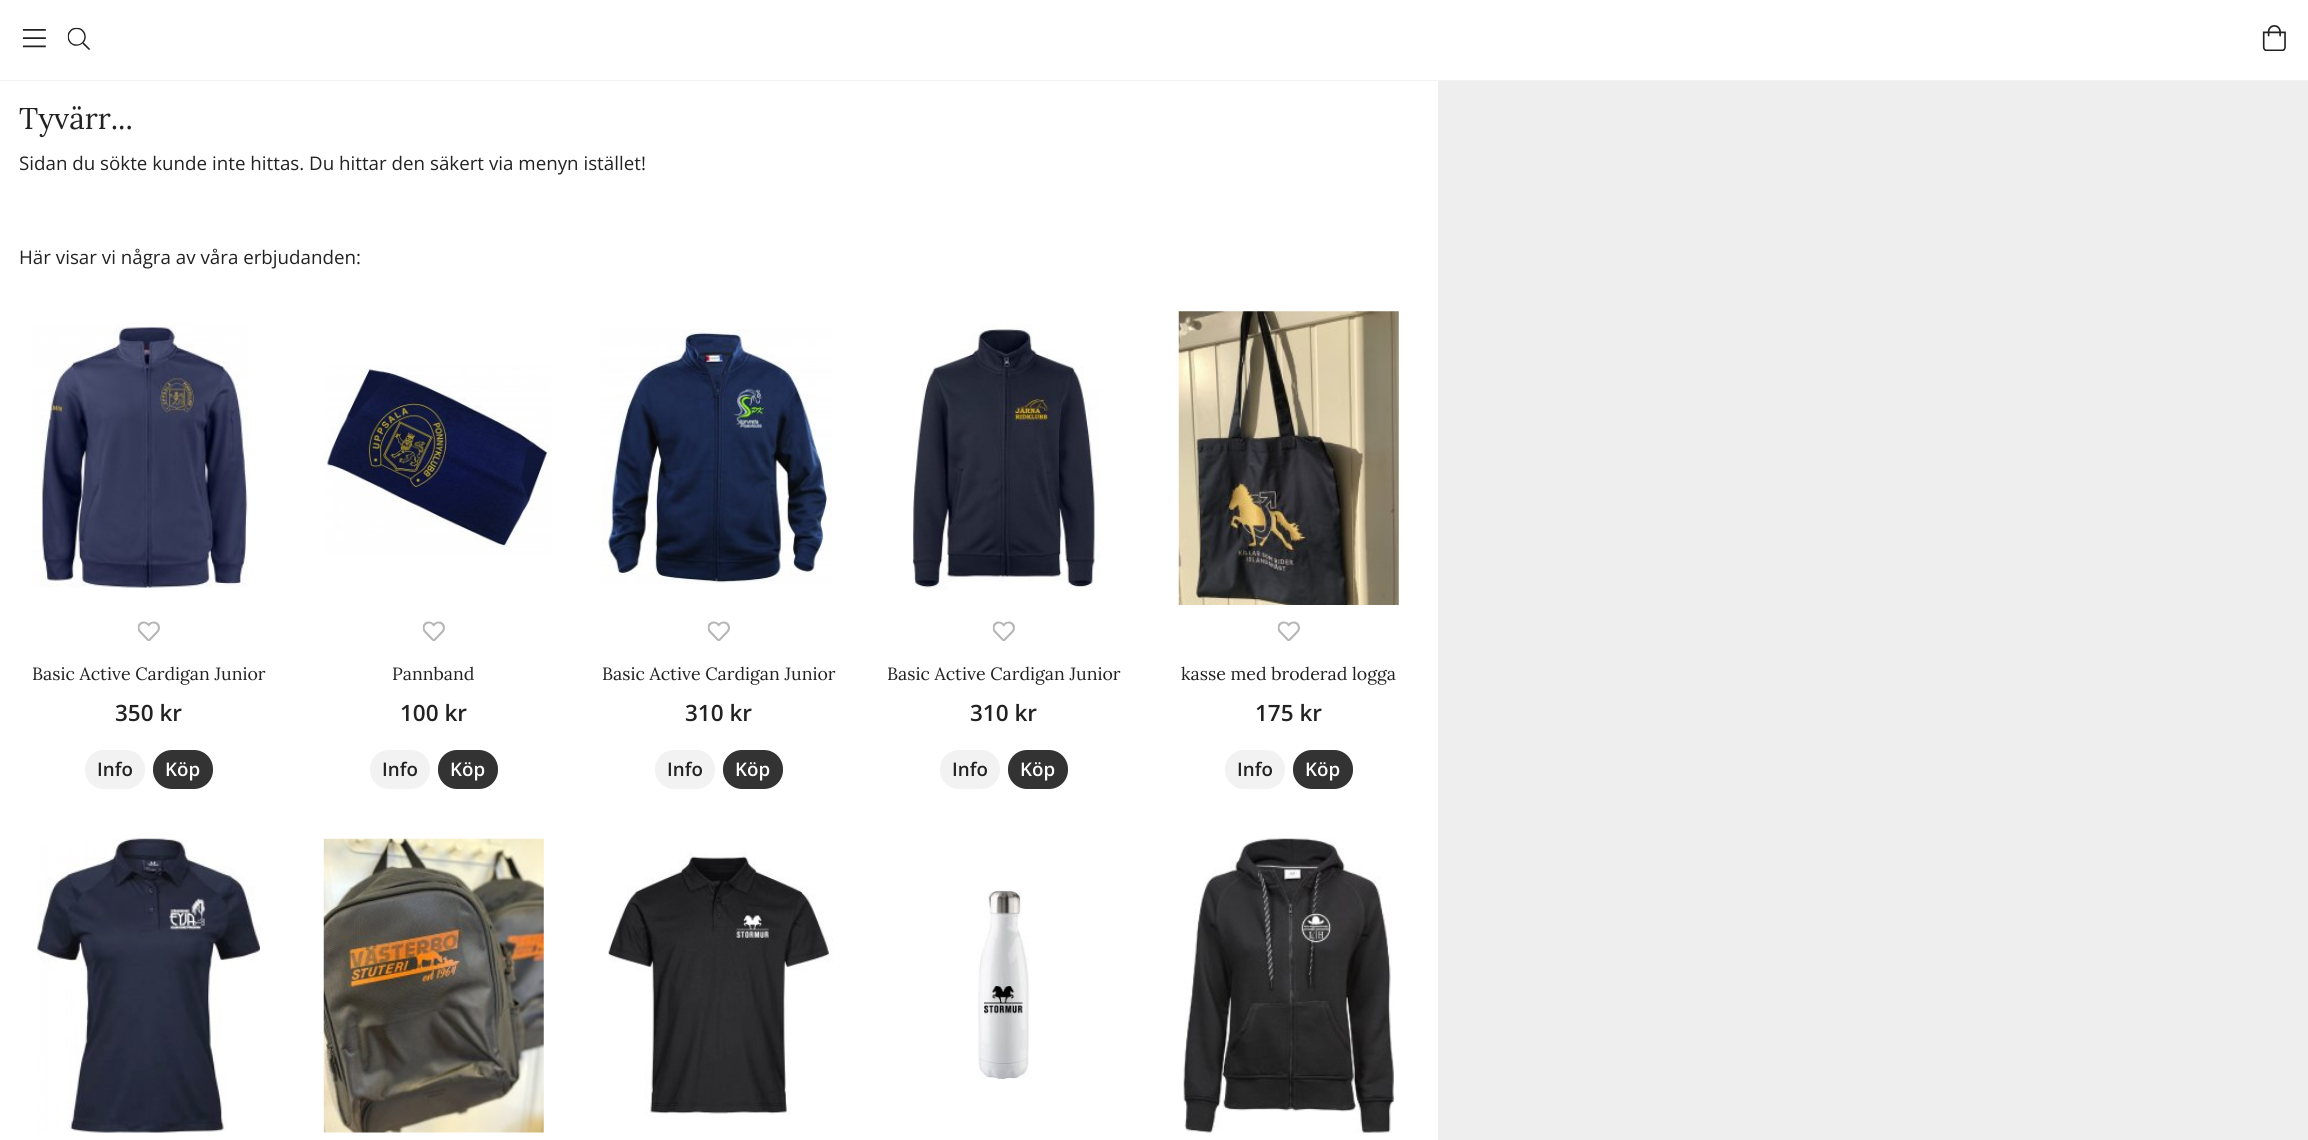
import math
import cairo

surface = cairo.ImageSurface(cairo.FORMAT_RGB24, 2308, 1140)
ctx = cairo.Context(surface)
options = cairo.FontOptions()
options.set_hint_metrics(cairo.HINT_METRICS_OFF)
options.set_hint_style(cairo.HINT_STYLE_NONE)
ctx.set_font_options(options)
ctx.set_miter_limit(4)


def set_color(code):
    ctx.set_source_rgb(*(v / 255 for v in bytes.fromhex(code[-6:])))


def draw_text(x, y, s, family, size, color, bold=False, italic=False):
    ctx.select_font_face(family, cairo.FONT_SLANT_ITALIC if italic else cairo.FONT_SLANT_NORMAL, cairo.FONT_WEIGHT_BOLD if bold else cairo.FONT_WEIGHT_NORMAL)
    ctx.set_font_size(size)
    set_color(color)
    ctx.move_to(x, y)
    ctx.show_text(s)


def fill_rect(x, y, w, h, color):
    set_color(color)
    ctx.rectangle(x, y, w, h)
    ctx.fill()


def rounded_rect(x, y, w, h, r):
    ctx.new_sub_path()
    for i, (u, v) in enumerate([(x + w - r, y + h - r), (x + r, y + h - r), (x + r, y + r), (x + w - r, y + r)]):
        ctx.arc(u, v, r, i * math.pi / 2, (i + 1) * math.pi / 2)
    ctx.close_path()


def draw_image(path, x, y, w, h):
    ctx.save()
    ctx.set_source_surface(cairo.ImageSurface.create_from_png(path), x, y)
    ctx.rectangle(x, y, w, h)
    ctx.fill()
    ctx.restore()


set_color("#eeeeee")
ctx.paint()
fill_rect(0, 0, 2308, 80, "#ffffff")
fill_rect(0, 80, 2308, 1, "#f2f2f2")
draw_image("assets/img1.png", 22, 29, 24, 19)
draw_image("assets/img2.png", 67, 27, 23, 23)
draw_image("assets/img3.png", 2262, 25, 24, 26)
fill_rect(0, 81, 1438, 1059, "#ffffff")
draw_text(19, 129, "Tyvärr...", "Lora", 30, "#222222")
draw_text(19, 170, "Sidan du sökte kunde inte hittas. Du hittar den säkert via menyn istället!", "Open Sans", 18.75, "#222222")
draw_text(19, 264, "Här visar vi några av våra erbjudanden:", "Open Sans", 18.75, "#222222")
draw_image("assets/img4.png", 31, 323, 218, 265)
draw_image("assets/img5.png", 137, 621, 23, 20)
draw_text(32, 680, "Basic Active Cardigan Junior", "Lora", 17.75, "#222222")
draw_text(115, 721, "350 kr", "Open Sans SemiBold", 22.5, "#222222")
set_color("#f2f2f2")
rounded_rect(85, 750, 60, 39, 19)
ctx.fill()
draw_text(97, 776, "Info", "Open Sans SemiBold", 18.75, "#222222")
set_color("#333333")
rounded_rect(153, 750, 60, 39, 19)
ctx.fill()
draw_text(165, 776, "Köp", "Open Sans SemiBold", 18.75, "#ffffff")
draw_image("assets/img6.png", 324, 364, 227, 191)
draw_image("assets/img5.png", 422, 621, 23, 20)
draw_text(392, 680, "Pannband", "Lora", 17.75, "#222222")
draw_text(400, 721, "100 kr", "Open Sans SemiBold", 22.5, "#222222")
set_color("#f2f2f2")
rounded_rect(370, 750, 60, 39, 19)
ctx.fill()
draw_text(382, 776, "Info", "Open Sans SemiBold", 18.75, "#222222")
set_color("#333333")
rounded_rect(438, 750, 60, 39, 19)
ctx.fill()
draw_text(450, 776, "Köp", "Open Sans SemiBold", 18.75, "#ffffff")
draw_image("assets/img7.png", 601, 329, 231, 255)
draw_image("assets/img5.png", 707, 621, 23, 20)
draw_text(602, 680, "Basic Active Cardigan Junior", "Lora", 17.75, "#222222")
draw_text(685, 721, "310 kr", "Open Sans SemiBold", 22.5, "#222222")
set_color("#f2f2f2")
rounded_rect(655, 750, 60, 39, 19)
ctx.fill()
draw_text(667, 776, "Info", "Open Sans SemiBold", 18.75, "#222222")
set_color("#333333")
rounded_rect(723, 750, 60, 39, 19)
ctx.fill()
draw_text(735, 776, "Köp", "Open Sans SemiBold", 18.75, "#ffffff")
draw_image("assets/img8.png", 912, 324, 189, 267)
draw_image("assets/img5.png", 992, 621, 23, 20)
draw_text(887, 680, "Basic Active Cardigan Junior", "Lora", 17.75, "#222222")
draw_text(970, 721, "310 kr", "Open Sans SemiBold", 22.5, "#222222")
set_color("#f2f2f2")
rounded_rect(940, 750, 60, 39, 19)
ctx.fill()
draw_text(952, 776, "Info", "Open Sans SemiBold", 18.75, "#222222")
set_color("#333333")
rounded_rect(1008, 750, 60, 39, 19)
ctx.fill()
draw_text(1020, 776, "Köp", "Open Sans SemiBold", 18.75, "#ffffff")
draw_image("assets/img9.png", 1178, 311, 221, 294)
draw_image("assets/img5.png", 1277, 621, 23, 20)
draw_text(1181, 680, "kasse med broderad logga", "Lora", 17.75, "#222222")
draw_text(1255, 721, "175 kr", "Open Sans SemiBold", 22.5, "#222222")
set_color("#f2f2f2")
rounded_rect(1225, 750, 60, 39, 19)
ctx.fill()
draw_text(1237, 776, "Info", "Open Sans SemiBold", 18.75, "#222222")
set_color("#333333")
rounded_rect(1293, 750, 60, 39, 19)
ctx.fill()
draw_text(1305, 776, "Köp", "Open Sans SemiBold", 18.75, "#ffffff")
draw_image("assets/img10.png", 37, 838, 223, 295)
draw_image("assets/img11.png", 323, 838, 221, 295)
draw_image("assets/img12.png", 608, 851, 225, 265)
draw_image("assets/img13.png", 977, 890, 52, 190)
draw_image("assets/img14.png", 1183, 838, 211, 295)
surface.write_to_png("output.png")
